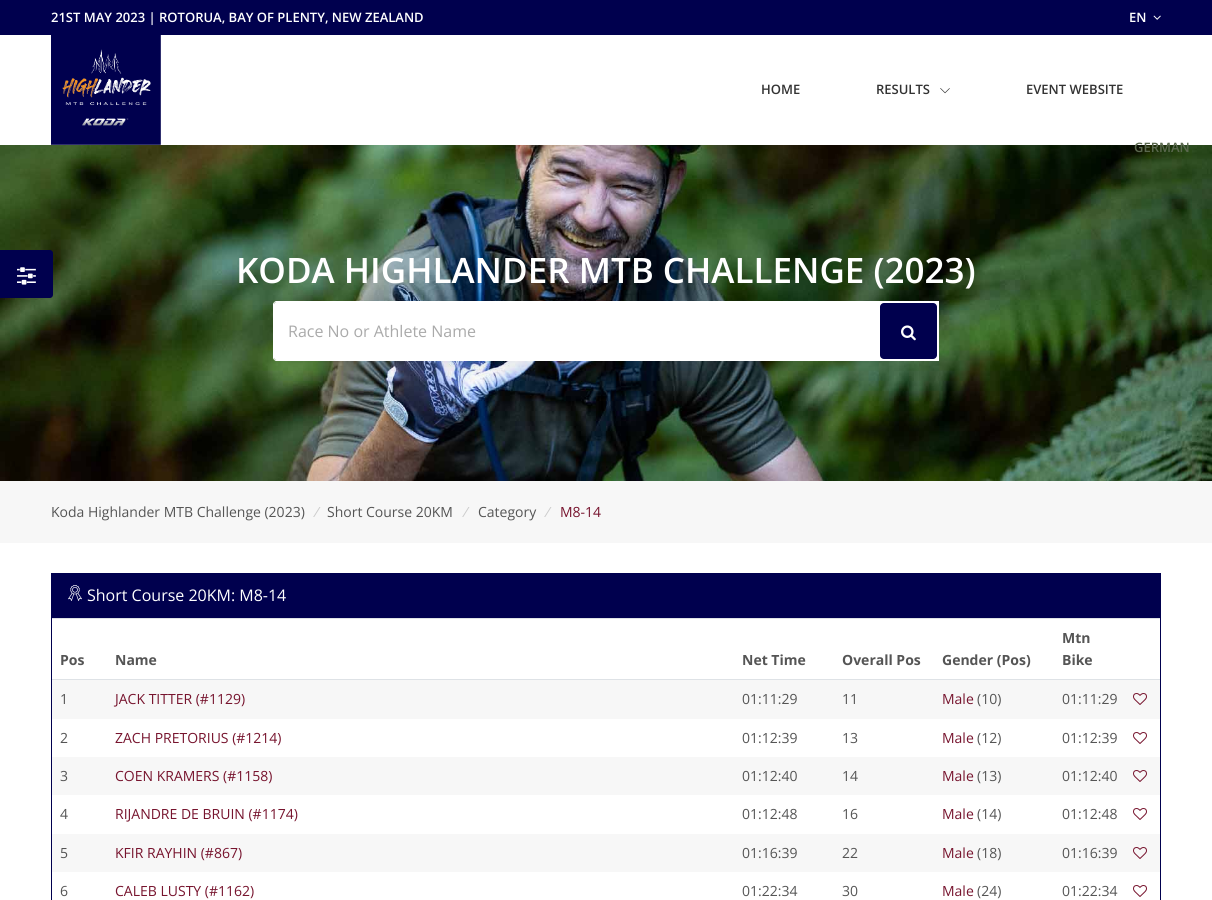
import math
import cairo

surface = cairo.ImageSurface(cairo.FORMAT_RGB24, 1212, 900)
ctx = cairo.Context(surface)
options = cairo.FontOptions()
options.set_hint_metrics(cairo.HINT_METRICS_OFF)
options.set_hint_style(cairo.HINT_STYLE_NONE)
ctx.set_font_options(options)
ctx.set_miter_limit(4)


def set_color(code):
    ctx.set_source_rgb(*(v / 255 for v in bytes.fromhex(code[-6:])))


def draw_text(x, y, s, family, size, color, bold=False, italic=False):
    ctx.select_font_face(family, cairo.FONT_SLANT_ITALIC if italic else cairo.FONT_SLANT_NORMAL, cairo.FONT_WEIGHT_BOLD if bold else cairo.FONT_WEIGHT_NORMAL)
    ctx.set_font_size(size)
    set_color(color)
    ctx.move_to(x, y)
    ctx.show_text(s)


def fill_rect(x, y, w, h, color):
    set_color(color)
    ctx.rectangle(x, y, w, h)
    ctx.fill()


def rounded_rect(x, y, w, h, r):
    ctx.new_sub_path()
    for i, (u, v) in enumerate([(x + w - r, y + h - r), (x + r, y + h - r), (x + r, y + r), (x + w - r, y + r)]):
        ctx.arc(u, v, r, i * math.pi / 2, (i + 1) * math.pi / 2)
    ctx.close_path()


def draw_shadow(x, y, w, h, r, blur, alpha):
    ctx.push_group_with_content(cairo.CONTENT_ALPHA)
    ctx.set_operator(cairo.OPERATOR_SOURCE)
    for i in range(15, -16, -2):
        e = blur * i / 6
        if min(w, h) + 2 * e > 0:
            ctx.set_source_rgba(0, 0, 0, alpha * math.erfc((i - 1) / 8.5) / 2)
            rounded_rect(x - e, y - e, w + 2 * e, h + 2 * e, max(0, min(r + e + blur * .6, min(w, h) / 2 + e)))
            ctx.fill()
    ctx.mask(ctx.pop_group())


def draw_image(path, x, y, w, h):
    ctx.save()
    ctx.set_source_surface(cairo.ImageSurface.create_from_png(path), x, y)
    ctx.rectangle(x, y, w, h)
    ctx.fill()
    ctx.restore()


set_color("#ffffff")
ctx.paint()
fill_rect(0, 0, 1212, 35, "#00004e")
draw_text(51, 22, "21ST MAY 2023 | ROTORUA, BAY OF PLENTY, NEW ZEALAND", "Open Sans SemiBold", 13, "#ffffff")
draw_text(1129, 22, "EN", "Open Sans SemiBold", 13, "#ffffff")
draw_image("assets/img1.png", 1153, 15, 8, 5)
draw_image("assets/img5.png", 0, 145, 1212, 336)
draw_text(1134, 152, "GERMAN", "Open Sans SemiBold", 13, "#5a684e")
draw_image("assets/img2.png", 51, 35, 110, 110)
draw_text(761, 94, "HOME", "Open Sans SemiBold", 13, "#333333")
draw_text(876, 94, "RESULTS", "Open Sans SemiBold", 13, "#333333")
draw_image("assets/img3.png", 940, 88, 10, 6)
draw_text(1026, 94, "EVENT WEBSITE", "Open Sans SemiBold", 13, "#333333")
set_color("#00004e")
ctx.new_path()
ctx.move_to(0, 250)
ctx.line_to(50, 250)
ctx.curve_to(51.5, 250, 53, 251.5, 53, 253)
ctx.line_to(53, 295)
ctx.curve_to(53, 296.5, 51.5, 298, 50, 298)
ctx.line_to(0, 298)
ctx.close_path()
ctx.fill()
draw_image("assets/img4.png", 17, 267, 19, 18)
draw_text(236, 283, "KODA HIGHLANDER MTB CHALLENGE (2023)", "Open Sans SemiBold", 35, "#ffffff")
set_color("#000000")
draw_shadow(285, 333, 642, 36, 0, 12.5, 0.09)
set_color("#ffffff")
ctx.new_path()
ctx.move_to(276.5, 302)
ctx.line_to(878, 302)
ctx.line_to(878, 360)
ctx.line_to(276.5, 360)
ctx.curve_to(275, 360, 274, 359, 274, 357.5)
ctx.line_to(274, 304.5)
ctx.curve_to(274, 303, 275, 302, 276.5, 302)
ctx.close_path()
ctx.fill()
ctx.set_fill_rule(cairo.FILL_RULE_EVEN_ODD)
ctx.new_path()
ctx.move_to(276, 301)
ctx.line_to(878, 301)
ctx.line_to(878, 361)
ctx.line_to(276, 361)
ctx.curve_to(275, 361, 273, 359, 273, 358)
ctx.line_to(273, 304)
ctx.curve_to(273, 303, 275, 301, 276, 301)
ctx.close_path()
ctx.move_to(276, 302)
ctx.line_to(878, 302)
ctx.line_to(878, 360)
ctx.line_to(276, 360)
ctx.curve_to(275, 360, 274, 359, 274, 358)
ctx.line_to(274, 304)
ctx.curve_to(274, 303, 275, 302, 276, 302)
ctx.close_path()
ctx.fill()
draw_text(288, 337, "Race No or Athlete Name", "Open Sans", 16, "#aaaaaa")
fill_rect(878, 301, 61, 60, "#ffffff")
set_color("#00004e")
rounded_rect(880, 303, 57, 56, 4)
ctx.fill()
draw_image("assets/img6.png", 901, 325, 15, 16)
fill_rect(0, 481, 1212, 62, "#f7f7f7")
draw_text(51, 517, "Koda Highlander MTB Challenge (2023)", "Open Sans", 14, "#555555")
draw_text(313, 517, "/", "Open Sans", 14, "#cccccc", italic=True)
draw_text(327, 517, "Short Course 20KM", "Open Sans", 14, "#555555")
draw_text(462, 517, "/", "Open Sans", 14, "#cccccc", italic=True)
draw_text(478, 517, "Category", "Open Sans", 14, "#555555")
draw_text(544, 517, "/", "Open Sans", 14, "#cccccc", italic=True)
draw_text(560, 517, "M8-14", "Open Sans", 14, "#77142e")
ctx.rectangle(51.5, 573.5, 1109, 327)
set_color("#00004e")
ctx.set_line_width(1)
ctx.stroke()
fill_rect(52, 574, 1108, 44, "#00004e")
draw_image("assets/img7.png", 68, 585, 14, 16)
draw_text(87, 601, "Short Course 20KM: M8-14", "Open Sans", 16, "#ffffff")
fill_rect(52, 618, 1108, 1, "#dee2e6")
fill_rect(52, 679, 1108, 1, "#dee2e6")
draw_text(60, 665, "Pos", "Open Sans", 14, "#555555", bold=True)
draw_text(115, 665, "Name", "Open Sans", 14, "#555555", bold=True)
draw_text(742, 665, "Net Time", "Open Sans", 14, "#555555", bold=True)
draw_text(842, 665, "Overall Pos", "Open Sans", 14, "#555555", bold=True)
draw_text(942, 665, "Gender (Pos)", "Open Sans", 14, "#555555", bold=True)
draw_text(1062, 643, "Mtn", "Open Sans", 14, "#555555", bold=True)
draw_text(1062, 665, "Bike", "Open Sans", 14, "#555555", bold=True)
fill_rect(52, 680, 1108, 39, "#f7f7f7")
draw_text(60, 704, "1", "Open Sans", 14, "#555555")
draw_text(115, 704, "JACK TITTER (#1129)", "Open Sans", 14, "#77142e")
draw_text(742, 704, "01:11:29", "Open Sans", 14, "#555555")
draw_text(842, 704, "11", "Open Sans", 14, "#555555")
draw_text(942, 704, "Male", "Open Sans", 14, "#77142e")
draw_text(977, 704, "(10)", "Open Sans", 14, "#555555")
draw_text(1062, 704, "01:11:29", "Open Sans", 14, "#555555")
draw_image("assets/img8.png", 1133, 693, 14, 12)
draw_text(60, 743, "2", "Open Sans", 14, "#555555")
draw_text(115, 743, "ZACH PRETORIUS (#1214)", "Open Sans", 14, "#77142e")
draw_text(742, 743, "01:12:39", "Open Sans", 14, "#555555")
draw_text(842, 743, "13", "Open Sans", 14, "#555555")
draw_text(942, 743, "Male", "Open Sans", 14, "#77142e")
draw_text(977, 743, "(12)", "Open Sans", 14, "#555555")
draw_text(1062, 743, "01:12:39", "Open Sans", 14, "#555555")
draw_image("assets/img9.png", 1133, 732, 14, 12)
fill_rect(52, 757, 1108, 38, "#f7f7f7")
draw_text(60, 781, "3", "Open Sans", 14, "#555555")
draw_text(115, 781, "COEN KRAMERS (#1158)", "Open Sans", 14, "#77142e")
draw_text(742, 781, "01:12:40", "Open Sans", 14, "#555555")
draw_text(842, 781, "14", "Open Sans", 14, "#555555")
draw_text(942, 781, "Male", "Open Sans", 14, "#77142e")
draw_text(977, 781, "(13)", "Open Sans", 14, "#555555")
draw_text(1062, 781, "01:12:40", "Open Sans", 14, "#555555")
draw_image("assets/img8.png", 1133, 770, 14, 12)
draw_text(60, 819, "4", "Open Sans", 14, "#555555")
draw_text(115, 819, "RIJANDRE DE BRUIN (#1174)", "Open Sans", 14, "#77142e")
draw_text(742, 819, "01:12:48", "Open Sans", 14, "#555555")
draw_text(842, 819, "16", "Open Sans", 14, "#555555")
draw_text(942, 819, "Male", "Open Sans", 14, "#77142e")
draw_text(977, 819, "(14)", "Open Sans", 14, "#555555")
draw_text(1062, 819, "01:12:48", "Open Sans", 14, "#555555")
draw_image("assets/img9.png", 1133, 808, 14, 12)
fill_rect(52, 834, 1108, 38, "#f7f7f7")
draw_text(60, 858, "5", "Open Sans", 14, "#555555")
draw_text(115, 858, "KFIR RAYHIN (#867)", "Open Sans", 14, "#77142e")
draw_text(742, 858, "01:16:39", "Open Sans", 14, "#555555")
draw_text(842, 858, "22", "Open Sans", 14, "#555555")
draw_text(942, 858, "Male", "Open Sans", 14, "#77142e")
draw_text(977, 858, "(18)", "Open Sans", 14, "#555555")
draw_text(1062, 858, "01:16:39", "Open Sans", 14, "#555555")
draw_image("assets/img8.png", 1133, 847, 14, 12)
draw_text(60, 896, "6", "Open Sans", 14, "#555555")
draw_text(115, 896, "CALEB LUSTY (#1162)", "Open Sans", 14, "#77142e")
draw_text(742, 896, "01:22:34", "Open Sans", 14, "#555555")
draw_text(842, 896, "30", "Open Sans", 14, "#555555")
draw_text(942, 896, "Male", "Open Sans", 14, "#77142e")
draw_text(977, 896, "(24)", "Open Sans", 14, "#555555")
draw_text(1062, 896, "01:22:34", "Open Sans", 14, "#555555")
draw_image("assets/img9.png", 1133, 885, 14, 12)
surface.write_to_png("output.png")
